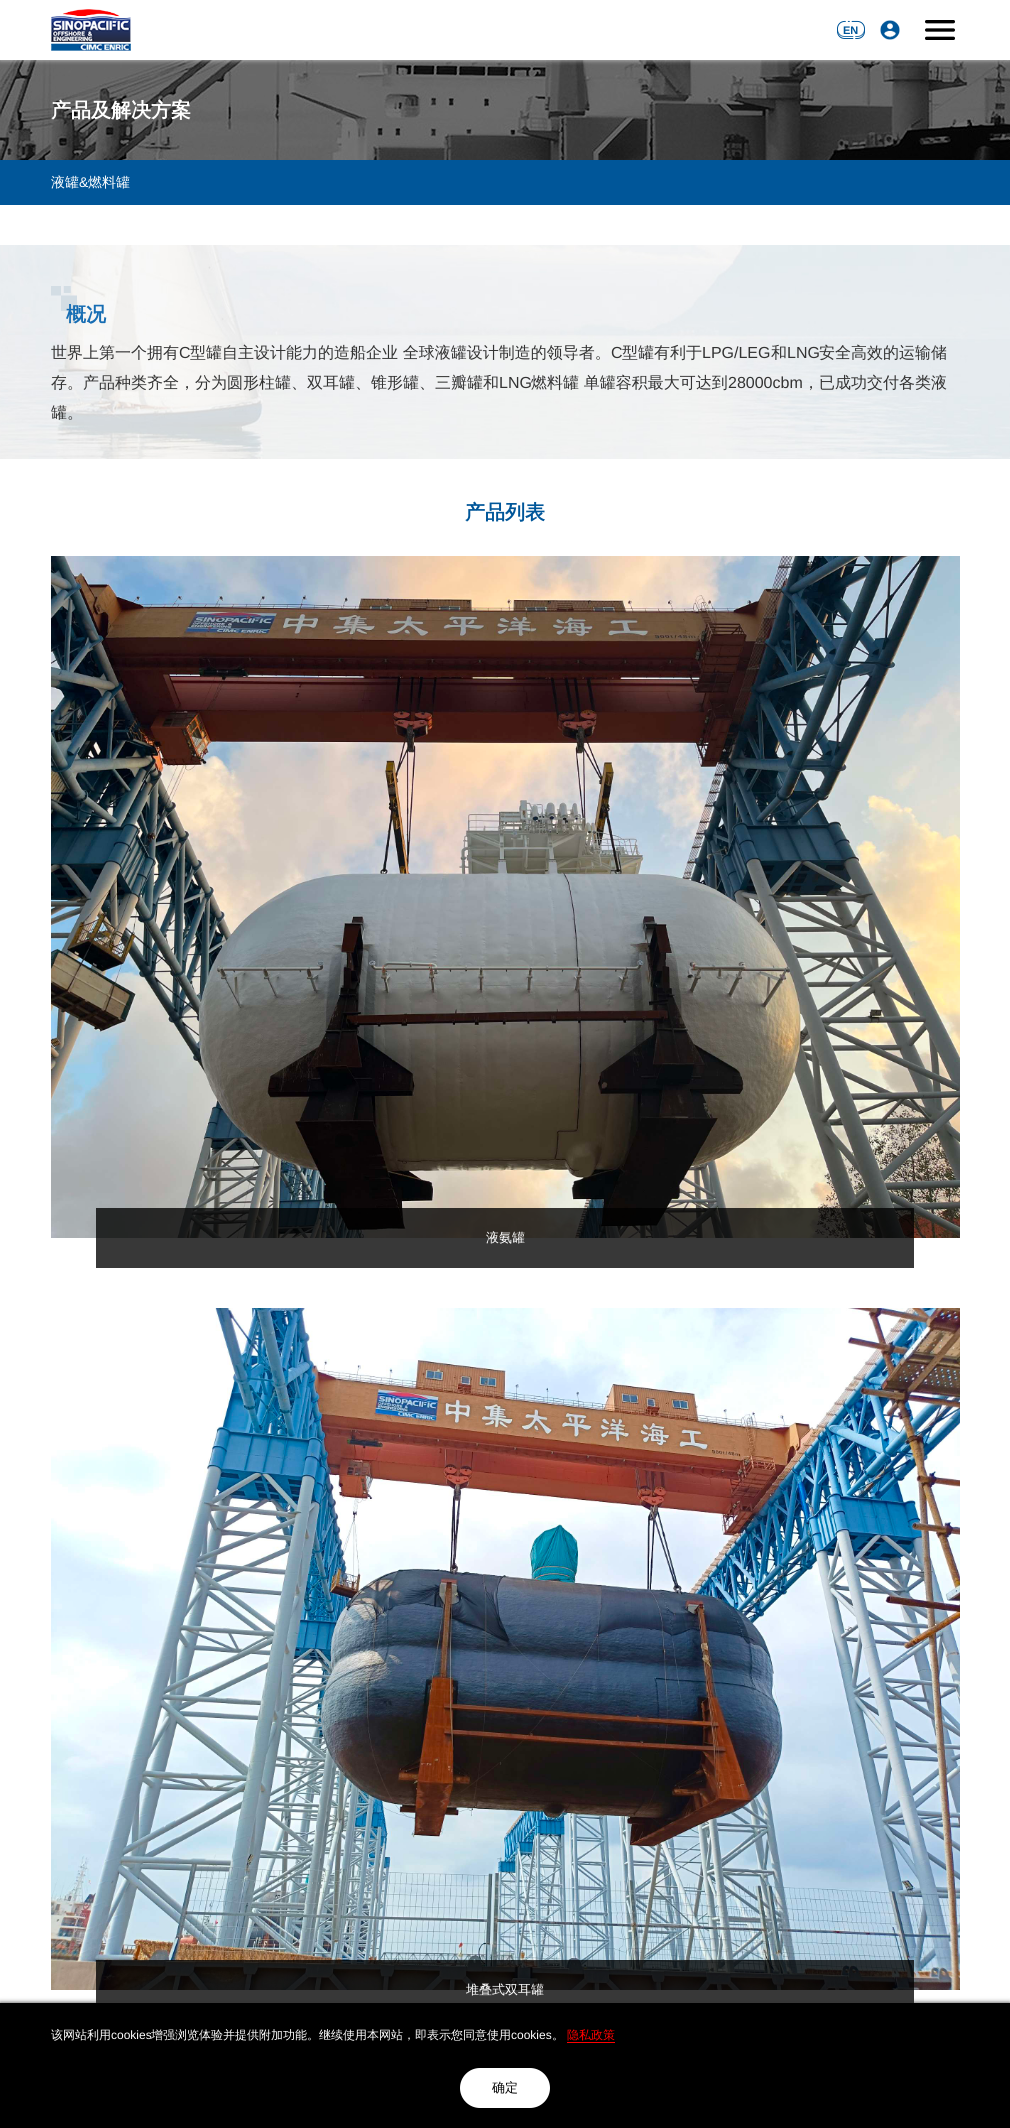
import math
import cairo

surface = cairo.ImageSurface(cairo.FORMAT_RGB24, 1010, 2128)
ctx = cairo.Context(surface)
options = cairo.FontOptions()
options.set_hint_metrics(cairo.HINT_METRICS_OFF)
options.set_hint_style(cairo.HINT_STYLE_NONE)
ctx.set_font_options(options)
ctx.set_miter_limit(4)


def set_color(code):
    ctx.set_source_rgb(*(v / 255 for v in bytes.fromhex(code[-6:])))


def draw_text(x, y, s, family, size, color, bold=False, italic=False):
    ctx.select_font_face(family, cairo.FONT_SLANT_ITALIC if italic else cairo.FONT_SLANT_NORMAL, cairo.FONT_WEIGHT_BOLD if bold else cairo.FONT_WEIGHT_NORMAL)
    ctx.set_font_size(size)
    set_color(color)
    ctx.move_to(x, y)
    ctx.show_text(s)


def fill_rect(x, y, w, h, color):
    set_color(color)
    ctx.rectangle(x, y, w, h)
    ctx.fill()


def rounded_rect(x, y, w, h, r):
    ctx.new_sub_path()
    for i, (u, v) in enumerate([(x + w - r, y + h - r), (x + r, y + h - r), (x + r, y + r), (x + w - r, y + r)]):
        ctx.arc(u, v, r, i * math.pi / 2, (i + 1) * math.pi / 2)
    ctx.close_path()


def draw_shadow(x, y, w, h, r, blur, alpha):
    ctx.push_group_with_content(cairo.CONTENT_ALPHA)
    ctx.set_operator(cairo.OPERATOR_SOURCE)
    for i in range(15, -16, -2):
        e = blur * i / 6
        if min(w, h) + 2 * e > 0:
            ctx.set_source_rgba(0, 0, 0, alpha * math.erfc((i - 1) / 8.5) / 2)
            rounded_rect(x - e, y - e, w + 2 * e, h + 2 * e, max(0, min(r + e + blur * .6, min(w, h) / 2 + e)))
            ctx.fill()
    ctx.mask(ctx.pop_group())


def draw_image(path, x, y, w, h):
    ctx.save()
    ctx.set_source_surface(cairo.ImageSurface.create_from_png(path), x, y)
    ctx.rectangle(x, y, w, h)
    ctx.fill()
    ctx.restore()


set_color("#ffffff")
ctx.paint()
draw_image("assets/img5.png", 0, 60, 1010, 100)
ctx.save()
ctx.rectangle(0, 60, 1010, 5)
ctx.clip()
set_color("#cccccc")
draw_shadow(0, 0, 1010, 60, 0, 2.5, 1)
ctx.restore()
draw_image("assets/img1.png", 51, 9, 80, 42)
draw_image("assets/img2.png", 837, 20, 28, 19)
draw_text(843, 34, "EN", "Liberation Sans", 11, "#005699", bold=True)
draw_image("assets/img3.png", 880, 20, 20, 20)
draw_image("assets/img4.png", 925, 20, 30, 20)
draw_text(51, 117, "产品及解决方案", "WenQuanYi Zen Hei", 20, "#ffffff", bold=True)
fill_rect(0, 160, 1010, 45, "#005699")
draw_text(51, 187, "液罐", "WenQuanYi Zen Hei Medium", 14, "#ffffff")
draw_text(79, 187, "&", "Liberation Sans", 14, "#ffffff")
draw_text(88, 187, "燃料罐", "WenQuanYi Zen Hei Medium", 14, "#ffffff")
draw_image("assets/img6.png", 0, 245, 1010, 214)
draw_image("assets/img7.png", 51, 286, 26, 25)
draw_text(66, 321, "概况", "WenQuanYi Zen Hei", 20, "#166db3", bold=True)
draw_text(51, 358, "世界上第一个拥有", "WenQuanYi Zen Hei Medium", 16, "#333333")
draw_text(179, 358, "C", "Liberation Sans", 16, "#333333")
draw_text(190, 358, "型罐自主设计能力的造船企业 全球液罐设计制造的领导者。", "WenQuanYi Zen Hei Medium", 16, "#333333")
draw_text(611, 358, "C", "Liberation Sans", 16, "#333333")
draw_text(622, 358, "型罐有利于", "WenQuanYi Zen Hei Medium", 16, "#333333")
draw_text(702, 358, "LPG/LEG", "Liberation Sans", 16, "#333333")
draw_text(771, 358, "和", "WenQuanYi Zen Hei Medium", 16, "#333333")
draw_text(787, 358, "LNG", "Liberation Sans", 16, "#333333")
draw_text(819, 358, "安全高效的运输储", "WenQuanYi Zen Hei Medium", 16, "#333333")
draw_text(51, 388, "存。产品种类齐全，分为圆形柱罐、双耳罐、锥形罐、三瓣罐和", "WenQuanYi Zen Hei Medium", 16, "#333333")
draw_text(499, 388, "LNG", "Liberation Sans", 16, "#333333")
draw_text(531, 388, "燃料罐 单罐容积最大可达到", "WenQuanYi Zen Hei Medium", 16, "#333333")
draw_text(728, 388, "28000cbm", "Liberation Sans", 16, "#333333")
draw_text(803, 388, "，已成功交付各类液", "WenQuanYi Zen Hei Medium", 16, "#333333")
draw_text(51, 418, "罐。", "WenQuanYi Zen Hei Medium", 16, "#333333")
draw_text(465, 519, "产品列表", "WenQuanYi Zen Hei", 20, "#005699", bold=True)
draw_image("assets/img8.png", 51, 556, 909, 682)
ctx.set_source_rgba(0, 0, 0, 0.78)
ctx.rectangle(96, 1208, 818, 60)
ctx.fill()
draw_text(486, 1242, "液氨罐", "WenQuanYi Zen Hei Medium", 13, "#ffffff")
draw_image("assets/img9.png", 51, 1308, 909, 682)
ctx.set_source_rgba(0, 0, 0, 0.78)
ctx.rectangle(96, 1960, 818, 43)
ctx.fill()
draw_text(466, 1994, "堆叠式双耳罐", "WenQuanYi Zen Hei Medium", 13, "#ffffff")
set_color("#333333")
draw_shadow(0, 2003, 1010, 125, 0, 2.5, 1)
fill_rect(0, 2003, 1010, 125, "#000000")
draw_text(51, 2039, "该网站利用", "WenQuanYi Zen Hei Medium", 12, "#ffffff")
draw_text(111, 2039, "cookies", "Liberation Sans", 12, "#ffffff")
draw_text(151, 2039, "增强浏览体验并提供附加功能。继续使用本网站，即表示您同意使用", "WenQuanYi Zen Hei Medium", 12, "#ffffff")
draw_text(511, 2039, "cookies", "Liberation Sans", 12, "#ffffff")
draw_text(552, 2039, "。", "WenQuanYi Zen Hei Medium", 12, "#ffffff")
draw_text(567, 2039, "隐私政策", "WenQuanYi Zen Hei Medium", 12, "#ff0000")
fill_rect(567, 2042, 48, 1, "#ff0000")
set_color("#ffffff")
rounded_rect(460, 2068, 90, 40, 20)
ctx.fill()
draw_text(492, 2092, "确定", "WenQuanYi Zen Hei Medium", 13, "#000000")
surface.write_to_png("output.png")
